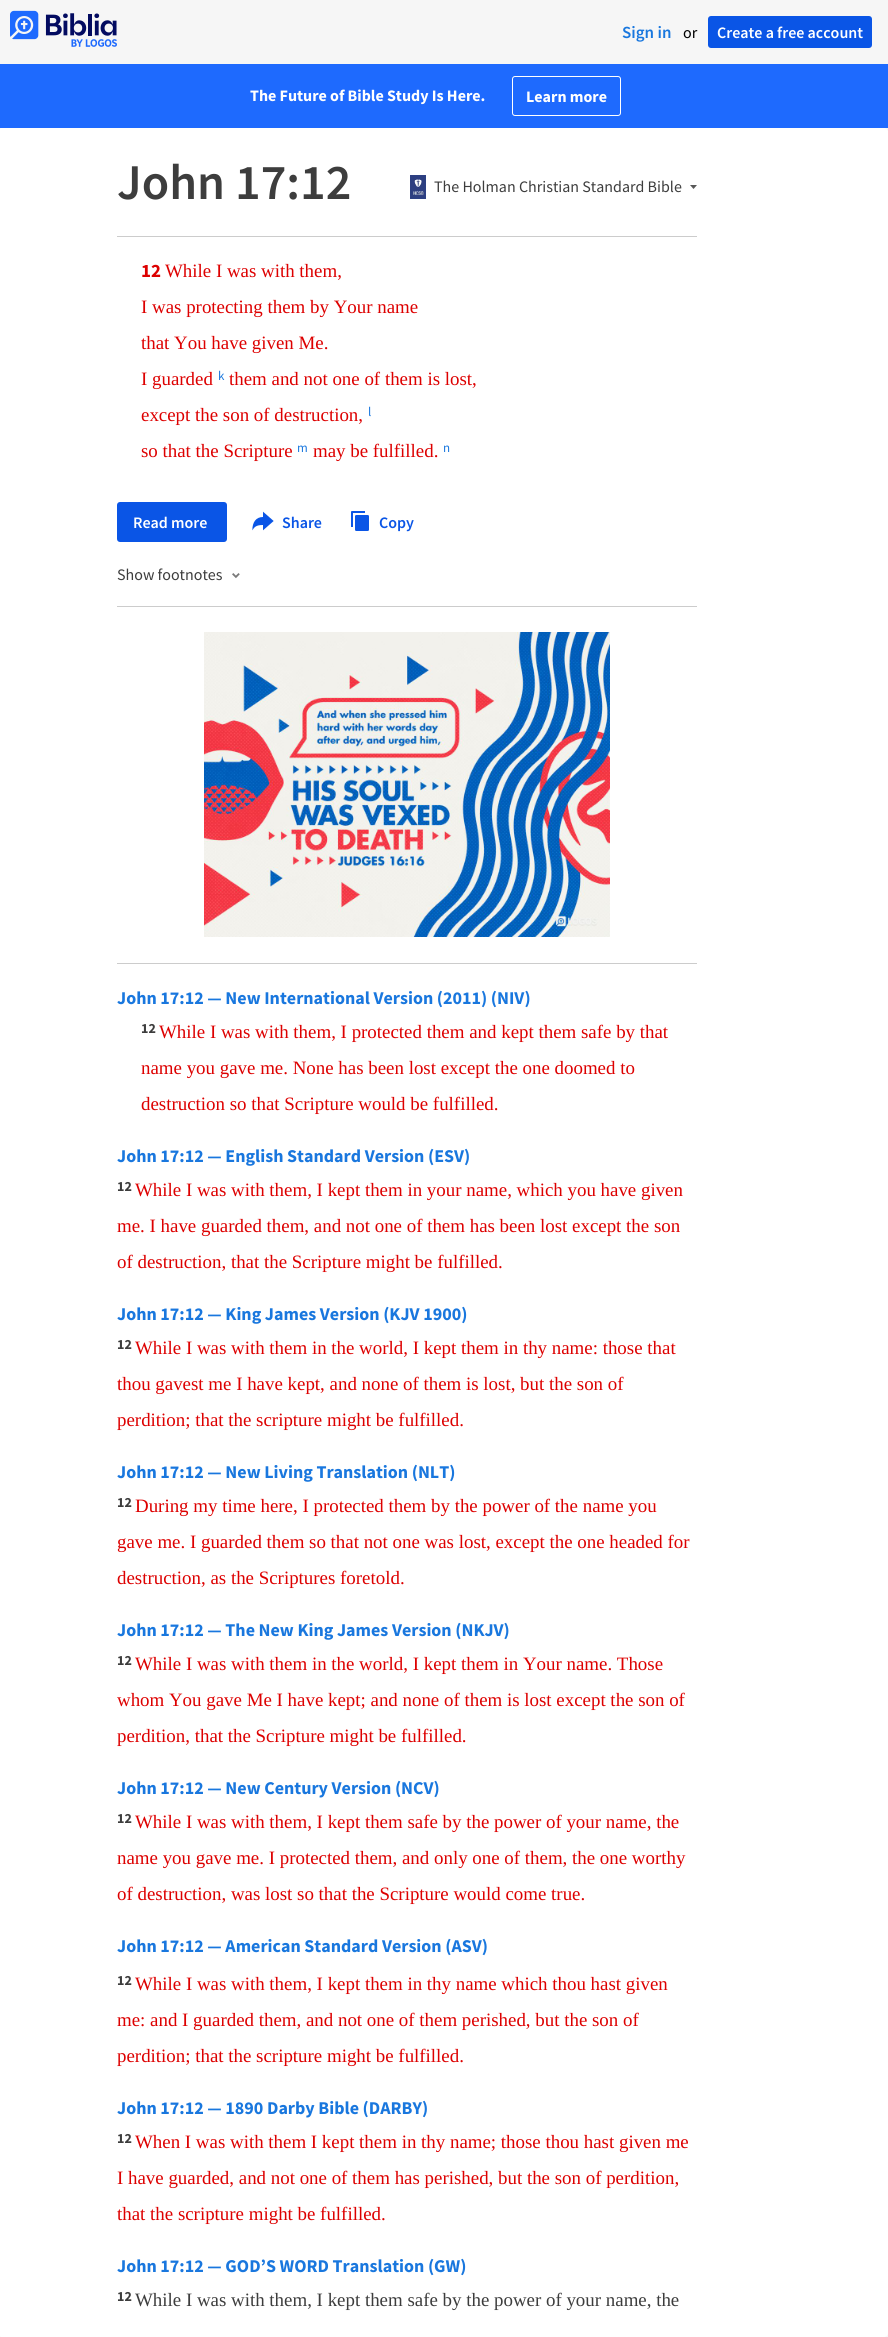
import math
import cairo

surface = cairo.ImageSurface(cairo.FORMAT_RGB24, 888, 2337)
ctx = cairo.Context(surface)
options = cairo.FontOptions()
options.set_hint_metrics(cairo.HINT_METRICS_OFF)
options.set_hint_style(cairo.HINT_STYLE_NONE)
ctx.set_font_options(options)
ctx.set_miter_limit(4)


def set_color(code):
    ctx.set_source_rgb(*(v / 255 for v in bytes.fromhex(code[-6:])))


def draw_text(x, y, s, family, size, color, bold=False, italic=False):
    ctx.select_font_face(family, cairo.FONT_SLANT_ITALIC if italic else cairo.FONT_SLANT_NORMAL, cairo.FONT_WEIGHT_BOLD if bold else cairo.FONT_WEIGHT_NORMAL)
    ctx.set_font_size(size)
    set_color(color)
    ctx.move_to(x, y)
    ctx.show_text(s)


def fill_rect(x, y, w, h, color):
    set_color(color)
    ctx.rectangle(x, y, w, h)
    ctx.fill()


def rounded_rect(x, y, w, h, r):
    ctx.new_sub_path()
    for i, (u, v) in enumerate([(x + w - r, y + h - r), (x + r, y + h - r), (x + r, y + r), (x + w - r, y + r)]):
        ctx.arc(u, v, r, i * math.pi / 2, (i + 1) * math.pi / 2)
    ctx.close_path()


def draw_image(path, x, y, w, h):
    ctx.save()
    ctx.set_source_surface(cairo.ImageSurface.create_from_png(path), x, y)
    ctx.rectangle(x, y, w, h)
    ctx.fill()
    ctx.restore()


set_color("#f6f6f6")
ctx.paint()
draw_image("assets/img1.png", 10, 10, 107, 37)
draw_text(622, 38, "Sign in", "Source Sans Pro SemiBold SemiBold", 17, "#1977de")
draw_text(683, 38, "or", "Source Sans Pro", 16, "#000000")
set_color("#0a55e6")
rounded_rect(708, 16, 164, 32, 3)
ctx.fill()
draw_text(717, 38, "Create a free account", "Source Sans Pro SemiBold SemiBold", 16, "#ffffff")
fill_rect(0, 64, 888, 64, "#1e6afe")
draw_text(250, 101, "The Future of Bible Study Is Here.", "Source Sans Pro", 16, "#ffffff", bold=True)
rounded_rect(512.5, 76.5, 108, 39, 2.5)
ctx.set_line_width(1)
ctx.stroke()
draw_text(526, 102, "Learn more", "Source Sans Pro", 16, "#ffffff", bold=True)
rounded_rect(-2, 128, 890, 2209, 4)
ctx.fill()
fill_rect(117, 236, 580, 1, "#cccccc")
draw_text(117, 199, "John 17:12", "Source Sans Pro SemiBold SemiBold", 50, "#3d3d3d")
draw_image("assets/img2.png", 410, 175, 16, 24)
draw_text(434, 192, "The Holman Christian Standard Bible", "Source Sans Pro", 16, "#3d3d3d")
set_color("#585858")
ctx.set_fill_rule(cairo.FILL_RULE_EVEN_ODD)
ctx.new_path()
ctx.move_to(693.5, 189)
ctx.line_to(697, 185)
ctx.line_to(690, 185)
ctx.close_path()
ctx.fill()
draw_text(141, 277, "12", "Source Sans Pro", 18.9, "#dd0000", bold=True)
draw_text(165, 277, "While I was with them,", "Liberation Serif", 18.9, "#dd0000")
draw_text(141, 313, "I was protecting them by Your name", "Liberation Serif", 18.9, "#dd0000")
draw_text(141, 349, "that You have given Me.", "Liberation Serif", 18.9, "#dd0000")
draw_text(141, 385, "I guarded", "Liberation Serif", 18.9, "#dd0000")
draw_text(218, 380, "k", "Source Sans Pro", 13, "#1977de")
draw_text(229, 385, "them and not one of them is lost,", "Liberation Serif", 18.9, "#dd0000")
draw_text(141, 421, "except the son of destruction,", "Liberation Serif", 18.9, "#dd0000")
draw_text(368, 416, "l", "Source Sans Pro", 13, "#1977de")
draw_text(141, 457, "so that the Scripture", "Liberation Serif", 18.9, "#dd0000")
draw_text(297, 452, "m", "Source Sans Pro", 13, "#1977de")
draw_text(313, 457, "may be fulfilled.", "Liberation Serif", 18.9, "#dd0000")
draw_text(443, 452, "n", "Source Sans Pro", 13, "#1977de")
set_color("#0a55e6")
rounded_rect(117, 502, 110, 40, 3)
ctx.fill()
draw_text(133, 528, "Read more", "Source Sans Pro SemiBold SemiBold", 16, "#ffffff")
draw_image("assets/img3.png", 252, 511, 22, 20)
draw_text(282, 528, "Share", "Source Sans Pro SemiBold SemiBold", 16, "#0a55e6")
draw_image("assets/img4.png", 351, 511, 18, 20)
draw_text(379, 528, "Copy", "Source Sans Pro SemiBold SemiBold", 16, "#0a55e6")
draw_text(117, 580, "Show footnotes", "Source Sans Pro", 16, "#3d3d3d")
draw_image("assets/img5.png", 232, 573, 8, 6)
fill_rect(117, 606, 580, 1, "#cccccc")
draw_image("assets/img6.png", 204, 632, 406, 305)
fill_rect(117, 963, 580, 1, "#cccccc")
draw_text(117, 1004, "John 17:12 — New International Version (2011) (NIV)", "Source Sans Pro", 18, "#1977de", bold=True)
draw_text(141, 1033, "12", "Source Sans Pro", 14, "#3d3d3d", bold=True)
draw_text(159, 1038, "While I was with them, I protected them and kept them safe by that", "Liberation Serif", 18.9, "#dd0000")
draw_text(141, 1074, "name you gave me. None has been lost except the one doomed to", "Liberation Serif", 18.9, "#dd0000")
draw_text(141, 1110, "destruction so that Scripture would be fulfilled.", "Liberation Serif", 18.9, "#dd0000")
draw_text(117, 1162, "John 17:12 — English Standard Version (ESV)", "Source Sans Pro", 18, "#1977de", bold=True)
draw_text(117, 1191, "12", "Source Sans Pro", 14, "#3d3d3d", bold=True)
draw_text(135, 1196, "While I was with them, I kept them in your name, which you have given", "Liberation Serif", 18.9, "#dd0000")
draw_text(117, 1232, "me. I have guarded them, and not one of them has been lost except the son", "Liberation Serif", 18.9, "#dd0000")
draw_text(117, 1268, "of destruction, that the Scripture might be fulfilled.", "Liberation Serif", 18.9, "#dd0000")
draw_text(117, 1320, "John 17:12 — King James Version (KJV 1900)", "Source Sans Pro", 18, "#1977de", bold=True)
draw_text(117, 1349, "12", "Source Sans Pro", 14, "#3d3d3d", bold=True)
draw_text(135, 1354, "While I was with them in the world, I kept them in thy name: those that", "Liberation Serif", 18.9, "#dd0000")
draw_text(117, 1390, "thou gavest me I have kept, and none of them is lost, but the son of", "Liberation Serif", 18.9, "#dd0000")
draw_text(117, 1426, "perdition; that the scripture might be fulfilled.", "Liberation Serif", 18.9, "#dd0000")
draw_text(117, 1478, "John 17:12 — New Living Translation (NLT)", "Source Sans Pro", 18, "#1977de", bold=True)
draw_text(117, 1507, "12", "Source Sans Pro", 14, "#3d3d3d", bold=True)
draw_text(135, 1512, "During my time here, I protected them by the power of the name you", "Liberation Serif", 18.9, "#dd0000")
draw_text(117, 1548, "gave me. I guarded them so that not one was lost, except the one headed for", "Liberation Serif", 18.9, "#dd0000")
draw_text(117, 1584, "destruction, as the Scriptures foretold.", "Liberation Serif", 18.9, "#dd0000")
draw_text(117, 1636, "John 17:12 — The New King James Version (NKJV)", "Source Sans Pro", 18, "#1977de", bold=True)
draw_text(117, 1665, "12", "Source Sans Pro", 14, "#3d3d3d", bold=True)
draw_text(135, 1670, "While I was with them in the world, I kept them in Your name. Those", "Liberation Serif", 18.9, "#dd0000")
draw_text(117, 1706, "whom You gave Me I have kept; and none of them is lost except the son of", "Liberation Serif", 18.9, "#dd0000")
draw_text(117, 1742, "perdition, that the Scripture might be fulfilled.", "Liberation Serif", 18.9, "#dd0000")
draw_text(117, 1794, "John 17:12 — New Century Version (NCV)", "Source Sans Pro", 18, "#1977de", bold=True)
draw_text(117, 1823, "12", "Source Sans Pro", 14, "#3d3d3d", bold=True)
draw_text(135, 1828, "While I was with them, I kept them safe by the power of your name, the", "Liberation Serif", 18.9, "#dd0000")
draw_text(117, 1864, "name you gave me. I protected them, and only one of them, the one worthy", "Liberation Serif", 18.9, "#dd0000")
draw_text(117, 1900, "of destruction, was lost so that the Scripture would come true.", "Liberation Serif", 18.9, "#dd0000")
draw_text(117, 1952, "John 17:12 — American Standard Version (ASV)", "Source Sans Pro", 18, "#1977de", bold=True)
draw_text(117, 1985, "12", "Source Sans Pro", 14, "#3d3d3d", bold=True)
draw_text(135, 1990, "While I was with them, I kept them in thy name which thou hast given", "Liberation Serif", 18.9, "#dd0000")
draw_text(117, 2026, "me: and I guarded them, and not one of them perished, but the son of", "Liberation Serif", 18.9, "#dd0000")
draw_text(117, 2062, "perdition; that the scripture might be fulfilled.", "Liberation Serif", 18.9, "#dd0000")
draw_text(117, 2114, "John 17:12 — 1890 Darby Bible (DARBY)", "Source Sans Pro", 18, "#1977de", bold=True)
draw_text(117, 2143, "12", "Source Sans Pro", 14, "#3d3d3d", bold=True)
draw_text(135, 2148, "When I was with them I kept them in thy name; those thou hast given me", "Liberation Serif", 18.9, "#dd0000")
draw_text(117, 2184, "I have guarded, and not one of them has perished, but the son of perdition,", "Liberation Serif", 18.9, "#dd0000")
draw_text(117, 2220, "that the scripture might be fulfilled.", "Liberation Serif", 18.9, "#dd0000")
draw_text(117, 2272, "John 17:12 — GOD’S WORD Translation (GW)", "Source Sans Pro", 18, "#1977de", bold=True)
draw_text(117, 2301, "12", "Source Sans Pro", 14, "#3d3d3d", bold=True)
draw_text(135, 2306, "While I was with them, I kept them safe by the power of your name, the", "Liberation Serif", 18.9, "#3d3d3d")
surface.write_to_png("output.png")
